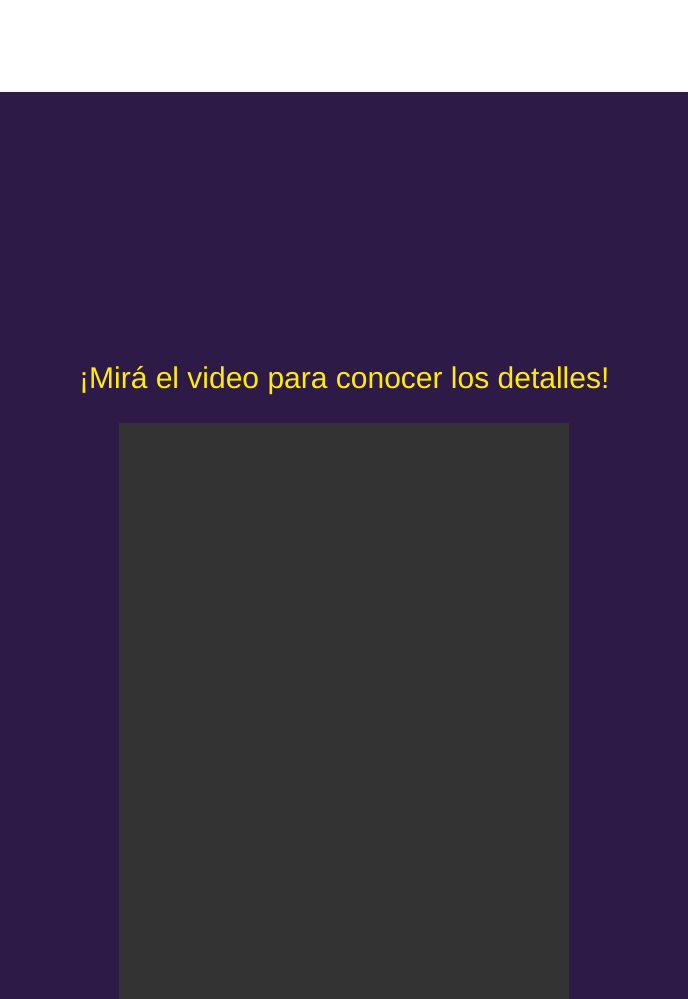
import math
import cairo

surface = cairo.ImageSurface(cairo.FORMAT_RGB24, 688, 999)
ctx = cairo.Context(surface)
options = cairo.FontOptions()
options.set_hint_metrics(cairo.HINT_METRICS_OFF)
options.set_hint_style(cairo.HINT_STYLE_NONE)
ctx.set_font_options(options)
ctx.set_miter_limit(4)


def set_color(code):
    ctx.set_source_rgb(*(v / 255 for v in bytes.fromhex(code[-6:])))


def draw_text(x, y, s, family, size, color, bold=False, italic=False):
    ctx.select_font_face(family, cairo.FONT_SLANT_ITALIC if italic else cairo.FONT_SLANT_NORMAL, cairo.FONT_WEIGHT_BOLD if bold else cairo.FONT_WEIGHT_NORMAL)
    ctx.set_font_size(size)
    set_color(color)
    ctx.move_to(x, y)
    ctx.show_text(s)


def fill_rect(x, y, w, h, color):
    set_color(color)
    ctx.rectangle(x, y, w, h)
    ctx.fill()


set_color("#f5f5f5")
ctx.paint()
fill_rect(0, 0, 688, 91, "#ffffff")
fill_rect(0, 92, 688, 907, "#2e1a46")
draw_text(79, 388, "¡Mirá el video para conocer los detalles!", "Liberation Sans", 30, "#ffec00")
fill_rect(119, 423, 450, 576, "#333333")
surface.write_to_png("output.png")
